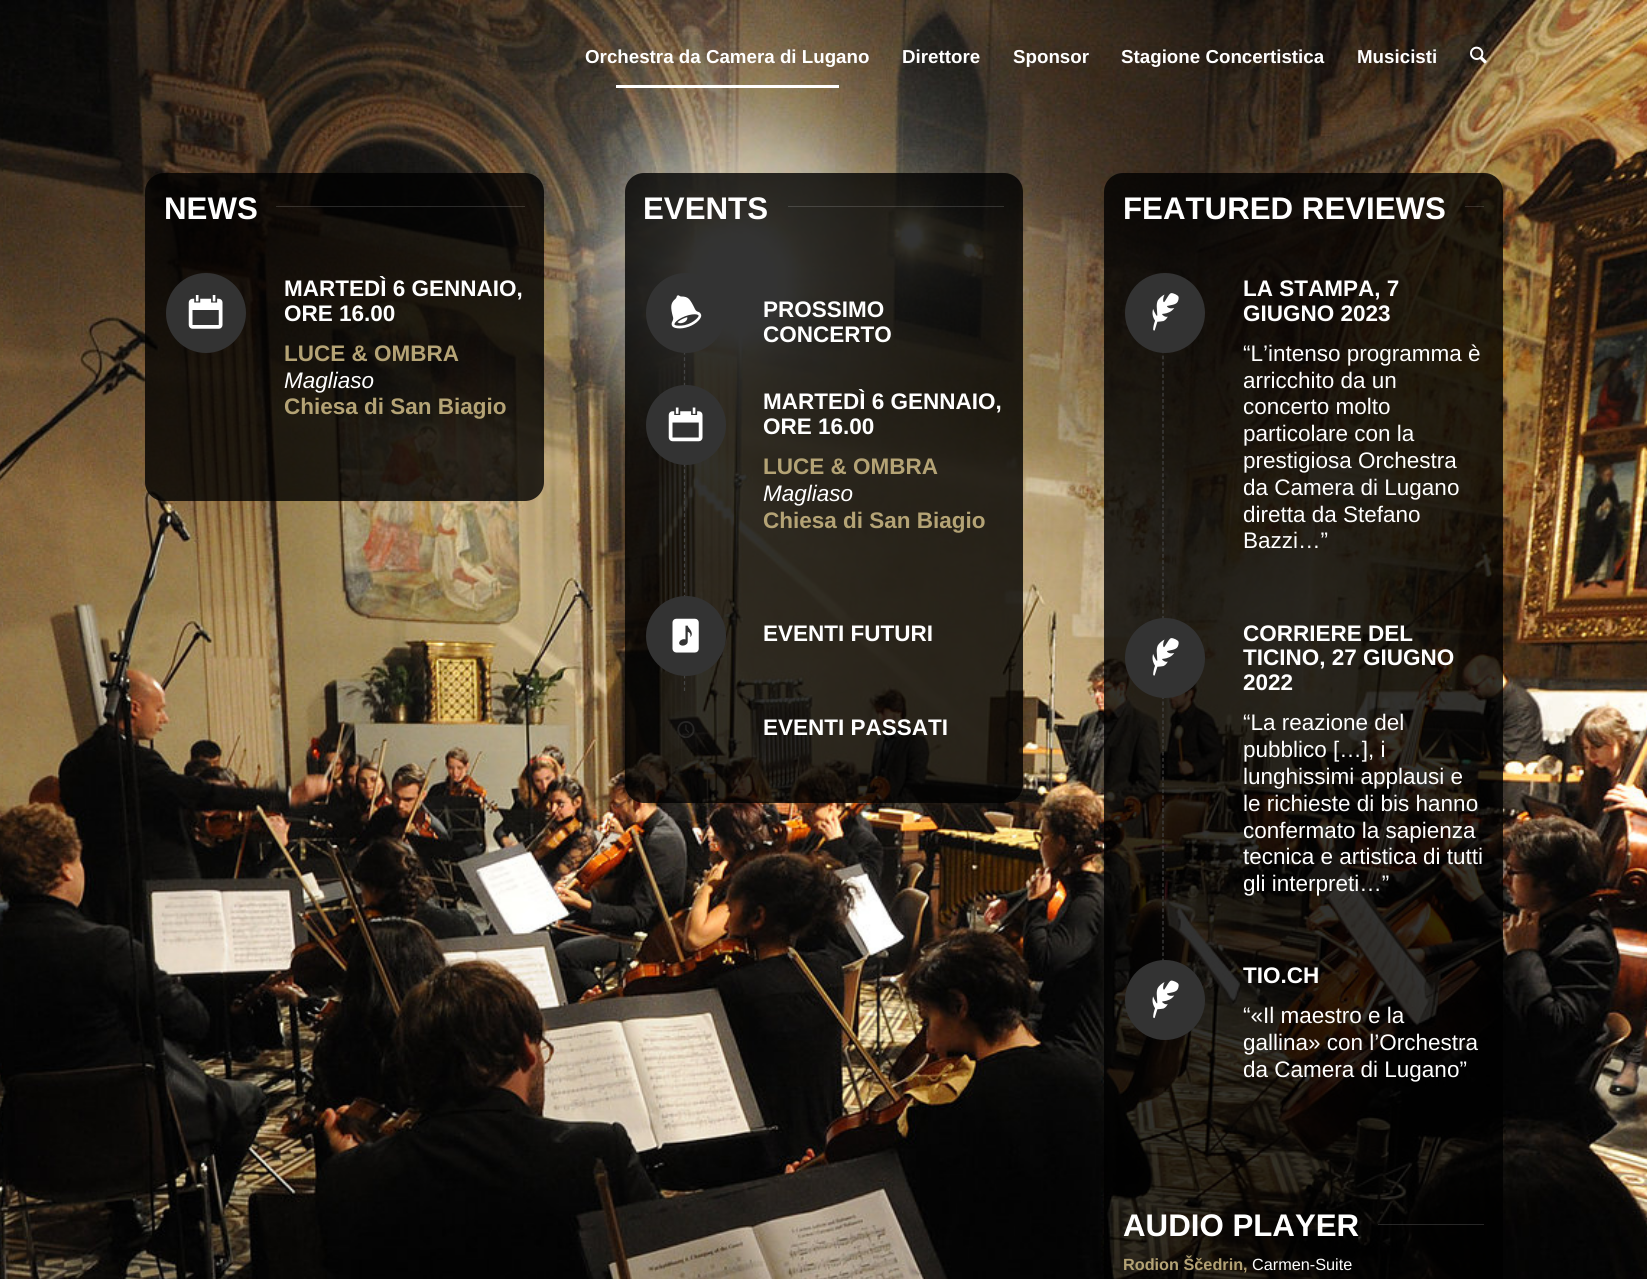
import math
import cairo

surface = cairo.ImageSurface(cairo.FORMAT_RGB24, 1647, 1279)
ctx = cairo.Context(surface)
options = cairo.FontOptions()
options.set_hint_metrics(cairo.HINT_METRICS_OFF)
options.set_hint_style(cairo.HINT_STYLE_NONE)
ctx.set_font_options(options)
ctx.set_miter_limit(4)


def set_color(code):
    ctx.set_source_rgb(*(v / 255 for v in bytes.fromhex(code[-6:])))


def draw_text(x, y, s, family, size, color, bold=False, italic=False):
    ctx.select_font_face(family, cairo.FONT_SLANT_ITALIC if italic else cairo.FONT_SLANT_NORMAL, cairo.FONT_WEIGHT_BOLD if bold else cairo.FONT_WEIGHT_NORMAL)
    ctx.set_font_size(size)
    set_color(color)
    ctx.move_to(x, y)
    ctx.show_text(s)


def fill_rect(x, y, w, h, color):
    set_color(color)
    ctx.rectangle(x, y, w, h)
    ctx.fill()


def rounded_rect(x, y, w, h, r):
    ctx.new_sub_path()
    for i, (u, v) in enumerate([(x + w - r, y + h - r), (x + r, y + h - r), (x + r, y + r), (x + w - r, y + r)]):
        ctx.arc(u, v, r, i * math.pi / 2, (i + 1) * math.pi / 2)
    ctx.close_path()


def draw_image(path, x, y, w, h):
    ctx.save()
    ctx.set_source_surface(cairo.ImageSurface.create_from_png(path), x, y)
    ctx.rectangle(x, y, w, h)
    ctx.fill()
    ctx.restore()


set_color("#ffffff")
ctx.paint()
draw_image("assets/img2.png", 0, 0, 1647, 1279)
draw_text(585, 63, "Orchestra da Camera di Lugano", "Liberation Sans", 18.75, "#ffffff", bold=True)
fill_rect(616, 85, 223, 3, "#ffffff")
draw_text(902, 63, "Direttore", "Liberation Sans", 18.75, "#ffffff", bold=True)
draw_text(1013, 63, "Sponsor", "Liberation Sans", 18.75, "#ffffff", bold=True)
draw_text(1121, 63, "Stagione Concertistica", "Liberation Sans", 18.75, "#ffffff", bold=True)
draw_text(1357, 63, "Musicisti", "Liberation Sans", 18.75, "#ffffff", bold=True)
draw_image("assets/img1.png", 1470, 46, 17, 18)
ctx.set_source_rgba(0, 0, 0, 0.8)
rounded_rect(145, 173, 399, 328, 19)
ctx.fill()
draw_text(164, 219, "NEWS", "Liberation Sans", 31.25, "#ffffff", bold=True)
ctx.set_source_rgba(1, 1, 1, 0.15)
ctx.rectangle(276, 206, 249, 1)
ctx.fill()
set_color("#333333")
ctx.arc(206, 313, 40, 0, 2 * math.pi)
ctx.fill()
draw_image("assets/img3.png", 188, 295, 35, 34)
draw_text(284, 296, "MARTEDÌ 6 GENNAIO,", "Liberation Sans", 22.5, "#ffffff", bold=True)
draw_text(284, 321, "ORE 16.00", "Liberation Sans", 22.5, "#ffffff", bold=True)
draw_text(284, 361, "LUCE & OMBRA", "Liberation Sans", 22.5, "#b4a375", bold=True)
draw_text(284, 388, "Magliaso", "Liberation Sans", 22.5, "#ffffff", italic=True)
draw_text(284, 414, "Chiesa di San Biagio", "Liberation Sans", 22.5, "#b4a375", bold=True)
ctx.set_source_rgba(0, 0, 0, 0.8)
rounded_rect(625, 173, 398, 630, 19)
ctx.fill()
draw_text(643, 219, "EVENTS", "Liberation Sans", 31.25, "#ffffff", bold=True)
ctx.set_source_rgba(1, 1, 1, 0.15)
ctx.rectangle(788, 206, 216, 1)
ctx.fill()
ctx.new_path()
ctx.move_to(684.5, 274)
ctx.line_to(684.5, 386)
set_color("#444444")
ctx.set_line_width(1.2)
ctx.set_dash([3.75, 2.65])
ctx.stroke()
set_color("#333333")
ctx.arc(686, 313, 40, 0, 2 * math.pi)
ctx.fill()
draw_image("assets/img4.png", 671, 295, 31, 34)
draw_text(763, 317, "PROSSIMO", "Liberation Sans", 22.5, "#ffffff", bold=True)
draw_text(763, 342, "CONCERTO", "Liberation Sans", 22.5, "#ffffff", bold=True)
ctx.new_path()
ctx.move_to(684.5, 387.5)
ctx.line_to(684.5, 599)
set_color("#444444")
ctx.set_dash([3.75, 2.54])
ctx.stroke()
set_color("#333333")
ctx.arc(686, 425, 40, 0, 2 * math.pi)
ctx.fill()
draw_image("assets/img5.png", 668, 407, 35, 35)
draw_text(763, 409, "MARTEDÌ 6 GENNAIO,", "Liberation Sans", 22.5, "#ffffff", bold=True)
draw_text(763, 434, "ORE 16.00", "Liberation Sans", 22.5, "#ffffff", bold=True)
draw_text(763, 474, "LUCE & OMBRA", "Liberation Sans", 22.5, "#b4a375", bold=True)
draw_text(763, 501, "Magliaso", "Liberation Sans", 22.5, "#ffffff", italic=True)
draw_text(763, 528, "Chiesa di San Biagio", "Liberation Sans", 22.5, "#b4a375", bold=True)
ctx.new_path()
ctx.move_to(684.5, 597.5)
ctx.line_to(684.5, 691)
set_color("#444444")
ctx.set_dash([3.75, 2.68])
ctx.stroke()
set_color("#333333")
ctx.arc(686, 636, 40, 0, 2 * math.pi)
ctx.fill()
draw_image("assets/img6.png", 672, 618, 27, 35)
draw_text(763, 641, "EVENTI FUTURI", "Liberation Sans", 22.5, "#ffffff", bold=True)
ctx.set_source_rgba(0.2, 0.2, 0.2, 0.1)
ctx.new_path()
ctx.arc(686, 730, 20, 0, 2 * math.pi)
ctx.fill()
draw_image("assets/img7.png", 677, 721, 18, 17)
draw_text(763, 735, "EVENTI PASSATI", "Liberation Sans", 22.5, "#ffffff", bold=True)
ctx.set_source_rgba(0, 0, 0, 0.8)
rounded_rect(1104, 173, 399, 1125, 19)
ctx.fill()
draw_text(1123, 219, "FEATURED REVIEWS", "Liberation Sans", 31.25, "#ffffff", bold=True)
ctx.set_source_rgba(1, 1, 1, 0.15)
ctx.rectangle(1465, 206, 19, 1)
ctx.fill()
ctx.new_path()
ctx.move_to(1163, 275)
ctx.line_to(1163, 620)
set_color("#444444")
ctx.set_dash([3.75, 2.45])
ctx.stroke()
set_color("#333333")
ctx.arc(1165, 313, 40, 0, 2 * math.pi)
ctx.fill()
draw_image("assets/img8.png", 1152, 293, 27, 38)
draw_text(1243, 296, "LA STAMPA, 7", "Liberation Sans", 22.5, "#ffffff", bold=True)
draw_text(1243, 321, "GIUGNO 2023", "Liberation Sans", 22.5, "#ffffff", bold=True)
draw_text(1243, 361, "“L’intenso programma è", "Liberation Sans", 22.5, "#ffffff")
draw_text(1243, 388, "arricchito da un", "Liberation Sans", 22.5, "#ffffff")
draw_text(1243, 414, "concerto molto", "Liberation Sans", 22.5, "#ffffff")
draw_text(1243, 441, "particolare con la", "Liberation Sans", 22.5, "#ffffff")
draw_text(1243, 468, "prestigiosa Orchestra", "Liberation Sans", 22.5, "#ffffff")
draw_text(1243, 495, "da Camera di Lugano", "Liberation Sans", 22.5, "#ffffff")
draw_text(1243, 522, "diretta da Stefano", "Liberation Sans", 22.5, "#ffffff")
draw_text(1243, 548, "Bazzi…”", "Liberation Sans", 22.5, "#ffffff")
ctx.new_path()
ctx.move_to(1163, 620)
ctx.line_to(1163, 962.5)
set_color("#444444")
ctx.set_dash([3.75, 2.52])
ctx.stroke()
set_color("#333333")
ctx.arc(1165, 658, 40, 0, 2 * math.pi)
ctx.fill()
draw_image("assets/img8.png", 1152, 638, 27, 38)
draw_text(1243, 641, "CORRIERE DEL", "Liberation Sans", 22.5, "#ffffff", bold=True)
draw_text(1243, 665, "TICINO, 27 GIUGNO", "Liberation Sans", 22.5, "#ffffff", bold=True)
draw_text(1243, 690, "2022", "Liberation Sans", 22.5, "#ffffff", bold=True)
draw_text(1243, 730, "“La reazione del", "Liberation Sans", 22.5, "#ffffff")
draw_text(1243, 757, "pubblico […], i", "Liberation Sans", 22.5, "#ffffff")
draw_text(1243, 784, "lunghissimi applausi e", "Liberation Sans", 22.5, "#ffffff")
draw_text(1243, 811, "le richieste di bis hanno", "Liberation Sans", 22.5, "#ffffff")
draw_text(1243, 838, "confermato la sapienza", "Liberation Sans", 22.5, "#ffffff")
draw_text(1243, 864, "tecnica e artistica di tutti", "Liberation Sans", 22.5, "#ffffff")
draw_text(1243, 891, "gli interpreti…”", "Liberation Sans", 22.5, "#ffffff")
set_color("#333333")
ctx.new_path()
ctx.arc(1165, 1000, 40, 0, 2 * math.pi)
ctx.fill()
draw_image("assets/img9.png", 1152, 980, 27, 39)
draw_text(1243, 983, "TIO.CH", "Liberation Sans", 22.5, "#ffffff", bold=True)
draw_text(1243, 1023, "“«Il maestro e la", "Liberation Sans", 22.5, "#ffffff")
draw_text(1243, 1050, "gallina» con l’Orchestra", "Liberation Sans", 22.5, "#ffffff")
draw_text(1243, 1077, "da Camera di Lugano”", "Liberation Sans", 22.5, "#ffffff")
draw_text(1123, 1236, "AUDIO PLAYER", "Liberation Sans", 31.25, "#ffffff", bold=True)
ctx.set_source_rgba(1, 1, 1, 0.15)
ctx.rectangle(1378, 1224, 106, 1)
ctx.fill()
draw_text(1123, 1270, "Rodion Ščedrin,", "Liberation Sans", 16.25, "#b4a375", bold=True)
draw_text(1252, 1270, "Carmen-Suite", "Liberation Sans", 16.25, "#ffffff")
surface.write_to_png("output.png")
